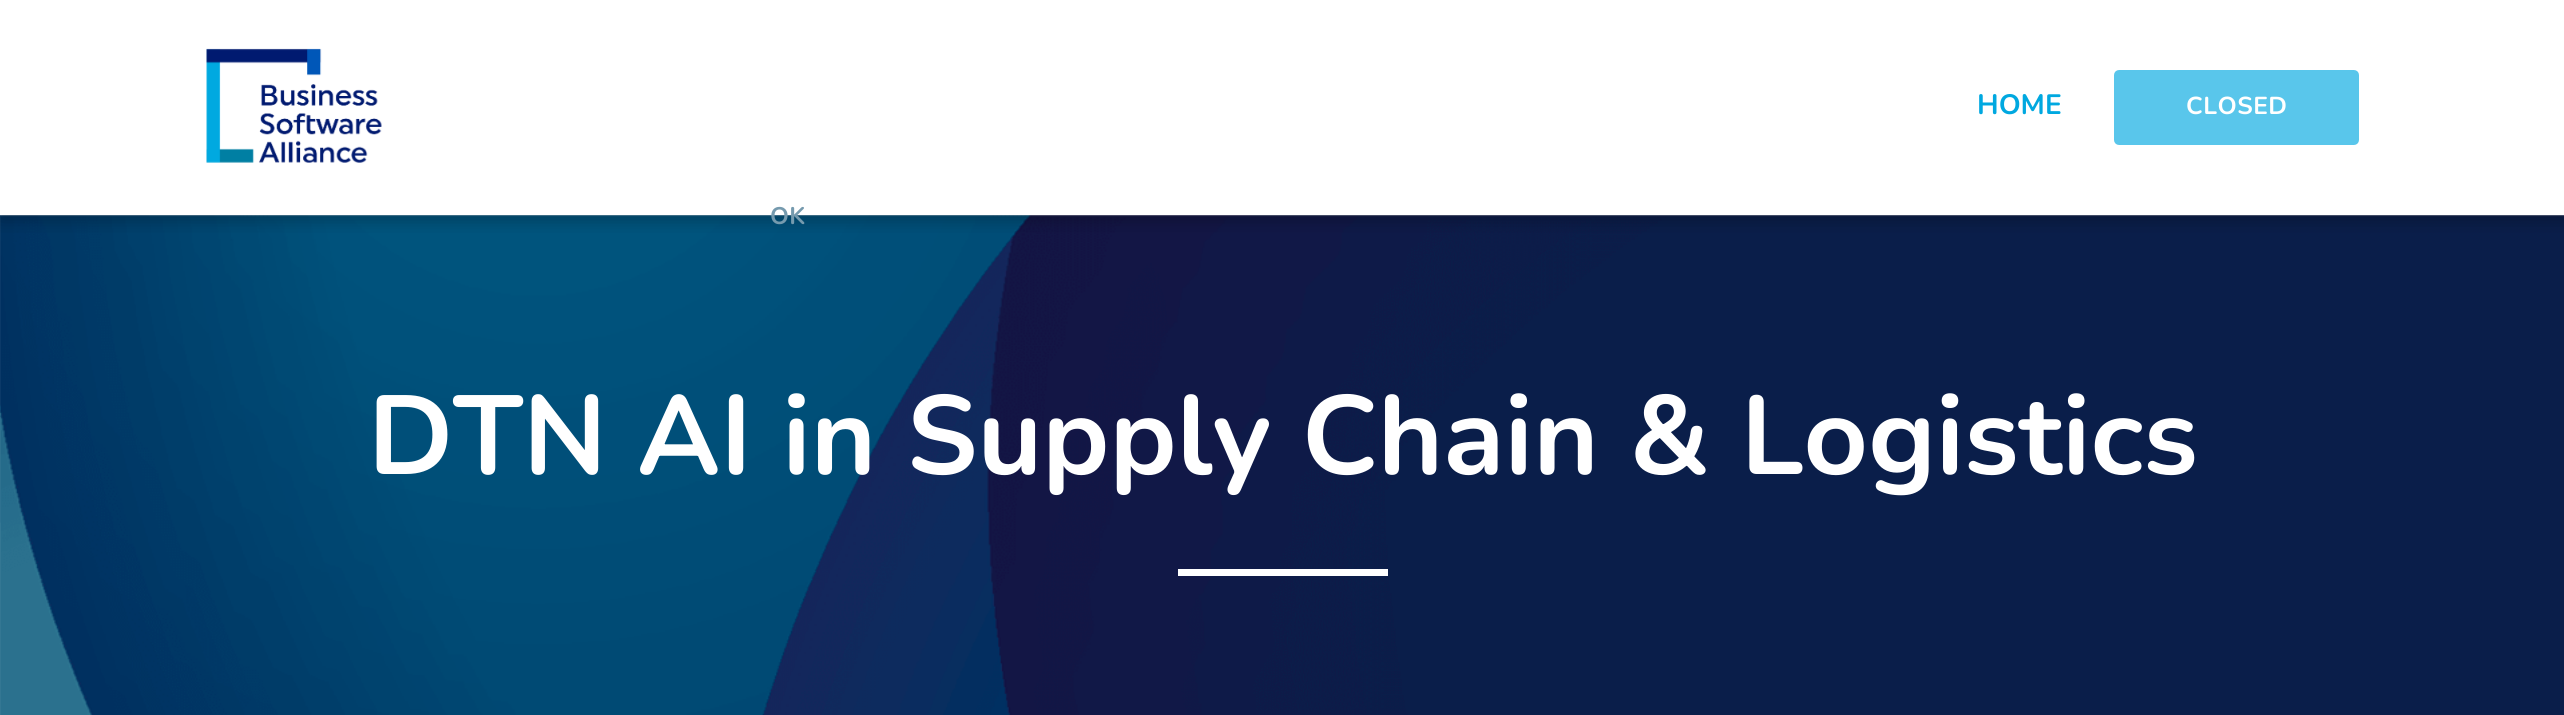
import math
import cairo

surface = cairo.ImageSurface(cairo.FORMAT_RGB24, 2564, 715)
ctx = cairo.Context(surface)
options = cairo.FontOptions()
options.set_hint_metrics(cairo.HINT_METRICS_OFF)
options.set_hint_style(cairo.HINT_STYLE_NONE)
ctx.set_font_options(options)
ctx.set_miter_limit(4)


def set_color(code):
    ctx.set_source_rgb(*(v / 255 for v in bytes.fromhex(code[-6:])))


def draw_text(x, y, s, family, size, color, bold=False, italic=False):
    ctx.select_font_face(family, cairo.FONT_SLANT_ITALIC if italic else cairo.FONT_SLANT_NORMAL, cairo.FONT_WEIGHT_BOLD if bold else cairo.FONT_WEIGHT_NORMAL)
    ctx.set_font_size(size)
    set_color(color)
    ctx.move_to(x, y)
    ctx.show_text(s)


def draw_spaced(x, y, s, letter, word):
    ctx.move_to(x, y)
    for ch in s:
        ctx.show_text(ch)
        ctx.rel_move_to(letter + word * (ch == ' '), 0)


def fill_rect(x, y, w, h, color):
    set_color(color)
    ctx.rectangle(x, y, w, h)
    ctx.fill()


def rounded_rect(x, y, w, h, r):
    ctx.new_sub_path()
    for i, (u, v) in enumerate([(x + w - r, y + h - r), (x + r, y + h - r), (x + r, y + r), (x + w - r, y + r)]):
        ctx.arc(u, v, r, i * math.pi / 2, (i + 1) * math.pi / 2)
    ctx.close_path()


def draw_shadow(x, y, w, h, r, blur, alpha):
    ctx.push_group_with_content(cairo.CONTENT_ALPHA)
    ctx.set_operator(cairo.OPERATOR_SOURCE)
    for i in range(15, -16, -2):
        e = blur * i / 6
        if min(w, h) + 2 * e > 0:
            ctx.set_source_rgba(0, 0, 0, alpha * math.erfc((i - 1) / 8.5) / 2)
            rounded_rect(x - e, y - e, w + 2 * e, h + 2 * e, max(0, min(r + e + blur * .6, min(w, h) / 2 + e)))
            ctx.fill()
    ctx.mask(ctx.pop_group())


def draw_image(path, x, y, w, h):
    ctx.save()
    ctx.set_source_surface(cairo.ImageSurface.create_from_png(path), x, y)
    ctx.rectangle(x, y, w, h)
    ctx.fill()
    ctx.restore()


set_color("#ffffff")
ctx.paint()
draw_image("assets/img2.png", 0, 215, 2564, 500)
ctx.save()
ctx.rectangle(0, 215, 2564, 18)
ctx.clip()
set_color("#000000")
draw_shadow(0, 4, 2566, 215, 0, 9, 0.3)
ctx.restore()
draw_image("assets/img1.png", 206, 48, 176, 115)
draw_text(1977, 114, "HOME", "Nunito ExtraLight", 28, "#00a8e0")
set_color("#59c6eb")
rounded_rect(2116, 72, 241, 71, 3)
ctx.fill_preserve()
ctx.set_line_width(4)
ctx.stroke()
ctx.set_font_size(24.5)
set_color("#ffffff")
draw_spaced(2186, 114, "CLOSED", 0.5, 0)
ctx.set_font_size(24)
set_color("#759aae")
draw_spaced(770, 224, "OK", 0.5, 0)
draw_text(368, 474, "DTN AI in Supply Chain & Logistics", "Nunito ExtraLight", 112, "#ffffff")
fill_rect(1178, 569, 210, 7, "#ffffff")
surface.write_to_png("output.png")
